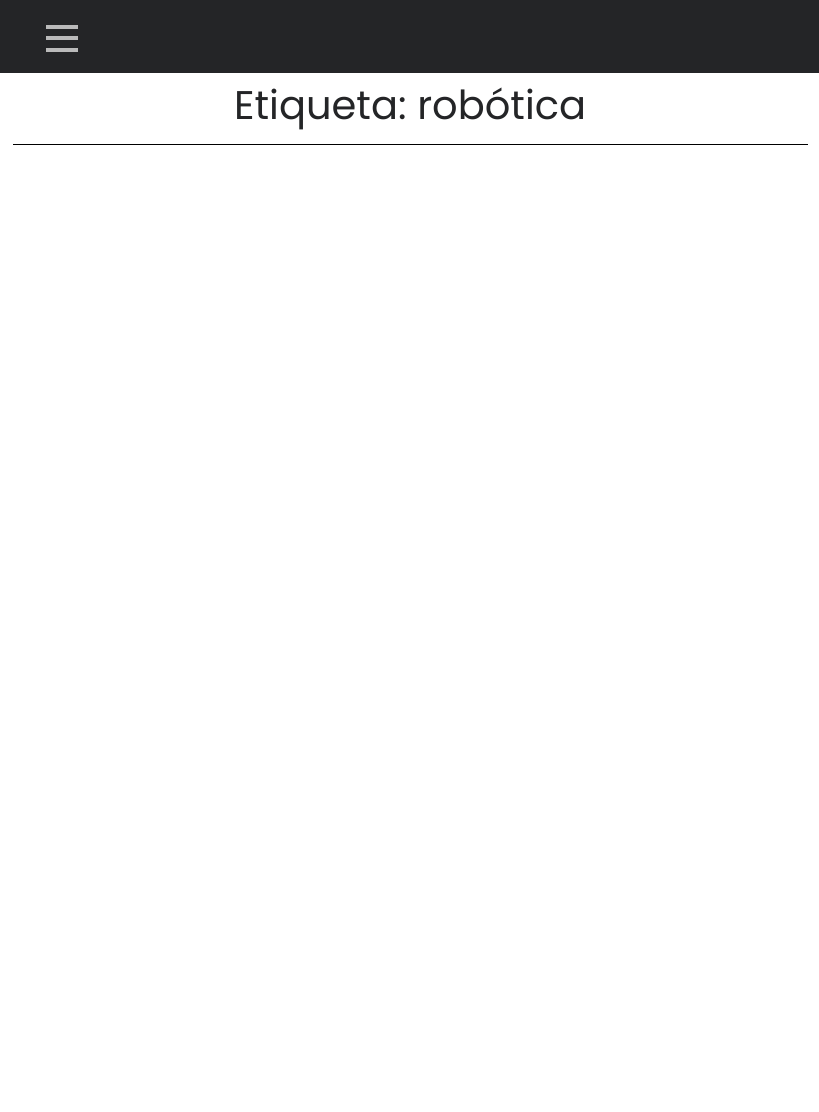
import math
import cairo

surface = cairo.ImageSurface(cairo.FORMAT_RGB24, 819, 1112)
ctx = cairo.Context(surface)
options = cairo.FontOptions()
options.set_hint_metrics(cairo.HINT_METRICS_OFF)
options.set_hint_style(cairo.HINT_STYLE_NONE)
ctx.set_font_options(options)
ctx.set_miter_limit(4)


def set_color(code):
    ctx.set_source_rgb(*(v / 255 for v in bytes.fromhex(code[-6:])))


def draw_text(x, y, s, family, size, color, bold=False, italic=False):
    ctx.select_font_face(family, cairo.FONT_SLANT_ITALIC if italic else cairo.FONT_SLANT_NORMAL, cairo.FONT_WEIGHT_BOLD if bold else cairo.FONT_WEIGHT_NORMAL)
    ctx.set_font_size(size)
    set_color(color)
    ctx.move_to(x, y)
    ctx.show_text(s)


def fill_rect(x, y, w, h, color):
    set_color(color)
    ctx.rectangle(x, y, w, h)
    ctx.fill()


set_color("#ffffff")
ctx.paint()
fill_rect(0, 0, 819, 73, "#242527")
fill_rect(46, 25, 32, 4, "#bababa")
fill_rect(46, 36, 32, 4, "#bababa")
fill_rect(46, 48, 32, 4, "#bababa")
draw_text(234, 119, "Etiqueta: robótica", "Poppins", 40, "#242527")
fill_rect(13, 144, 795, 1, "#000000")
surface.write_to_png("output.png")
